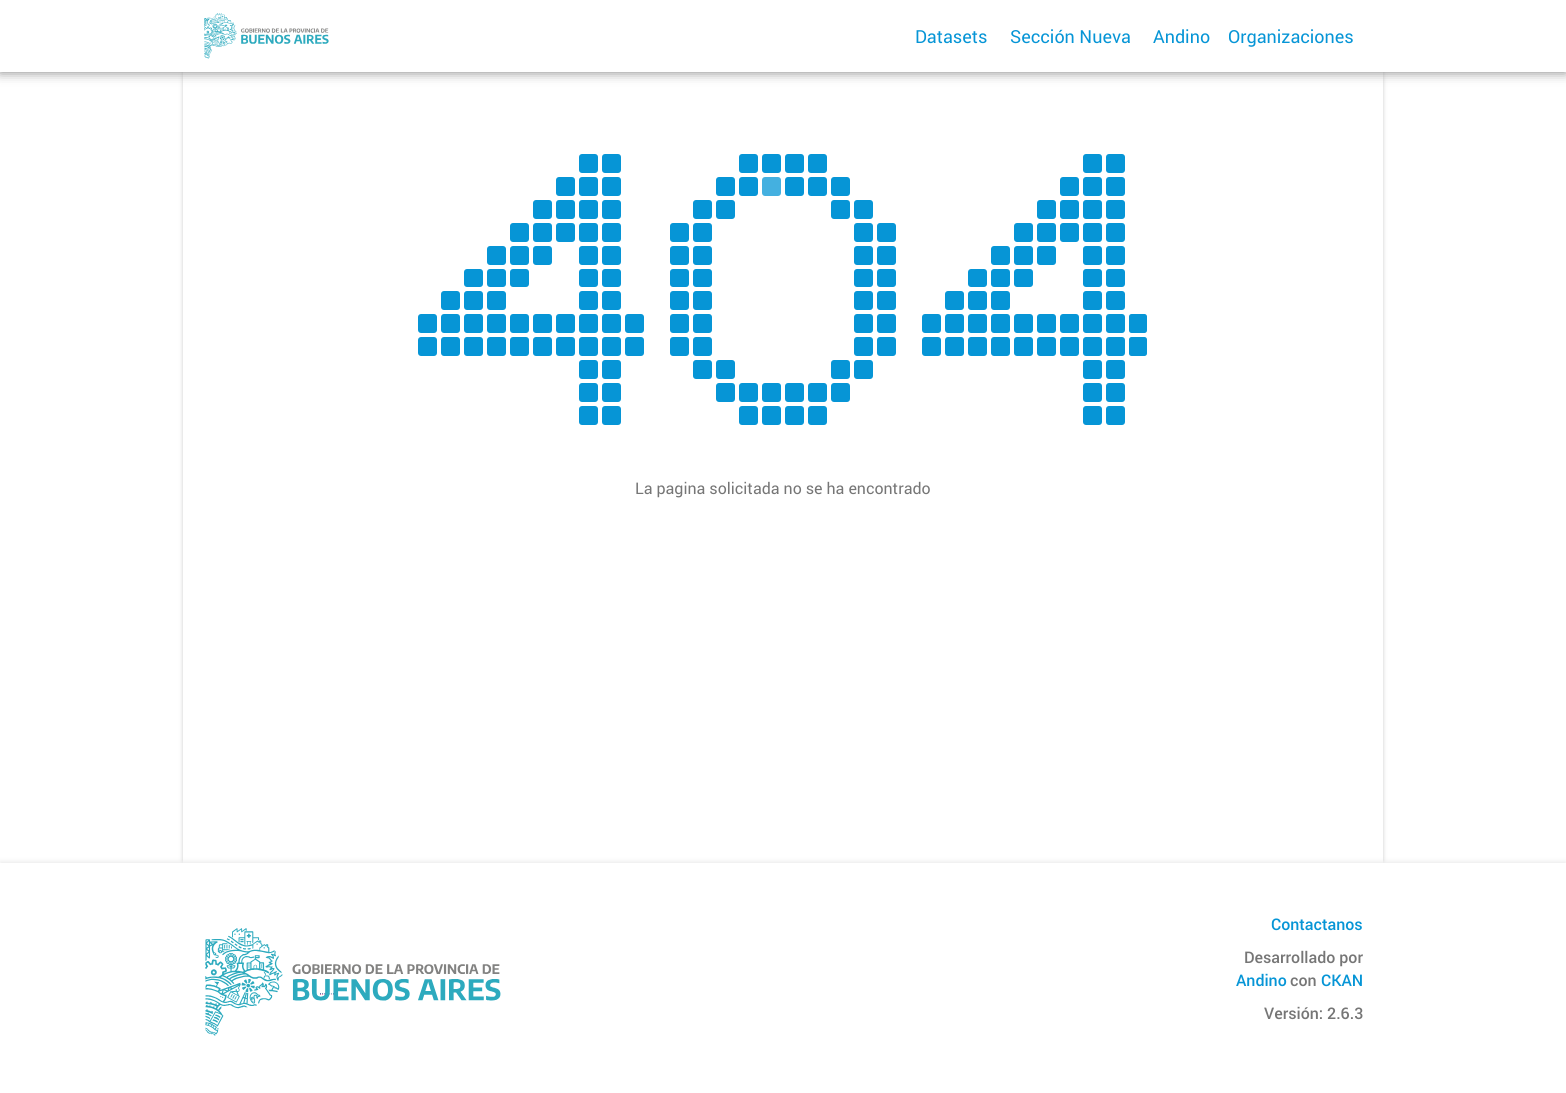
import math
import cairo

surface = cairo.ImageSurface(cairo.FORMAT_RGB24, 1566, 1093)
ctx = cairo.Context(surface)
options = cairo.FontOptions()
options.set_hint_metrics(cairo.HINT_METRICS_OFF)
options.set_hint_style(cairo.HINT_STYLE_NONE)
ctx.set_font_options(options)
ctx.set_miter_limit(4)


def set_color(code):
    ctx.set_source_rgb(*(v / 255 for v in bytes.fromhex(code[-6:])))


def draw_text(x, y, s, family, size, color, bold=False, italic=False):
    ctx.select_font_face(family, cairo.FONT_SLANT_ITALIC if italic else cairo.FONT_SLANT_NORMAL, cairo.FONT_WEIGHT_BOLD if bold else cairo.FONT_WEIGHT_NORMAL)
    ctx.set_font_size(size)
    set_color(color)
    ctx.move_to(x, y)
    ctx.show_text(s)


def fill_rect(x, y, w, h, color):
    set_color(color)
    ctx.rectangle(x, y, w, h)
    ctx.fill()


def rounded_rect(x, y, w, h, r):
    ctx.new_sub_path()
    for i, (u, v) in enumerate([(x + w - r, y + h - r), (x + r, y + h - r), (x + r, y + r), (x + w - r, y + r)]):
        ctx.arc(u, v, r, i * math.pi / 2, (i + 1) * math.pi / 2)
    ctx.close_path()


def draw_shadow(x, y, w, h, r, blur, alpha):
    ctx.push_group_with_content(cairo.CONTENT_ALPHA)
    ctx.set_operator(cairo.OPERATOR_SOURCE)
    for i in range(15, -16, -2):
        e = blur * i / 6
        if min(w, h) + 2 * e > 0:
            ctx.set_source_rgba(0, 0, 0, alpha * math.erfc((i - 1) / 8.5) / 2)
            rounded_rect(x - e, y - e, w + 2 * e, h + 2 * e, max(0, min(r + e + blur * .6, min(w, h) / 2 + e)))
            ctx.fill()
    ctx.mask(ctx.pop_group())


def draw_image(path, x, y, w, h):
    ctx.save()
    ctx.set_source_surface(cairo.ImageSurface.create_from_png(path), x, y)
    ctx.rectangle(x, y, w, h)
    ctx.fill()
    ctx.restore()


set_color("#ffffff")
ctx.paint()
set_color("#000000")
draw_shadow(0, 0, 1566, 72, 0, 6, 0.5)
ctx.save()
ctx.set_fill_rule(cairo.FILL_RULE_EVEN_ODD)
ctx.new_path()
ctx.move_to(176, 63)
ctx.line_to(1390, 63)
ctx.line_to(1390, 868)
ctx.line_to(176, 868)
ctx.close_path()
ctx.move_to(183, 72)
ctx.line_to(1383, 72)
ctx.line_to(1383, 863)
ctx.line_to(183, 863)
ctx.close_path()
ctx.clip()
set_color("#969696")
draw_shadow(183, 70, 1200, 791, 0, 2, 0.5)
ctx.restore()
fill_rect(0, 0, 1566, 72, "#ffffff")
draw_image("assets/img1.png", 204, 13, 125, 46)
draw_text(915, 43, "Datasets", "Roboto", 18, "#0695d6")
draw_text(1010, 43, "Sección Nueva", "Roboto", 18, "#0695d6")
draw_text(1153, 43, "Andino", "Roboto", 18, "#0695d6")
draw_text(1228, 43, "Organizaciones", "Roboto", 18, "#0695d6")
rounded_rect(579, 154, 19, 19, 3)
ctx.fill()
rounded_rect(602, 154, 19, 19, 3)
ctx.fill()
rounded_rect(739, 154, 19, 19, 3)
ctx.fill()
rounded_rect(762, 154, 19, 19, 3)
ctx.fill()
rounded_rect(785, 154, 19, 19, 3)
ctx.fill()
rounded_rect(808, 154, 19, 19, 3)
ctx.fill()
rounded_rect(1083, 154, 19, 19, 3)
ctx.fill()
rounded_rect(1106, 154, 19, 19, 3)
ctx.fill()
rounded_rect(556, 177, 19, 19, 3)
ctx.fill()
rounded_rect(579, 177, 19, 19, 3)
ctx.fill()
rounded_rect(602, 177, 19, 19, 3)
ctx.fill()
rounded_rect(716, 177, 19, 19, 3)
ctx.fill()
rounded_rect(739, 177, 19, 19, 3)
ctx.fill()
set_color("#44b0e0")
rounded_rect(762, 177, 19, 19, 3)
ctx.fill()
set_color("#0695d6")
rounded_rect(785, 177, 19, 19, 3)
ctx.fill()
rounded_rect(808, 177, 19, 19, 3)
ctx.fill()
rounded_rect(831, 177, 19, 19, 3)
ctx.fill()
rounded_rect(1060, 177, 19, 19, 3)
ctx.fill()
rounded_rect(1083, 177, 19, 19, 3)
ctx.fill()
rounded_rect(1106, 177, 19, 19, 3)
ctx.fill()
rounded_rect(533, 200, 19, 19, 3)
ctx.fill()
rounded_rect(556, 200, 19, 19, 3)
ctx.fill()
rounded_rect(579, 200, 19, 19, 3)
ctx.fill()
rounded_rect(602, 200, 19, 19, 3)
ctx.fill()
rounded_rect(693, 200, 19, 19, 3)
ctx.fill()
rounded_rect(716, 200, 19, 19, 3)
ctx.fill()
rounded_rect(831, 200, 19, 19, 3)
ctx.fill()
rounded_rect(854, 200, 19, 19, 3)
ctx.fill()
rounded_rect(1037, 200, 19, 19, 3)
ctx.fill()
rounded_rect(1060, 200, 19, 19, 3)
ctx.fill()
rounded_rect(1083, 200, 19, 19, 3)
ctx.fill()
rounded_rect(1106, 200, 19, 19, 3)
ctx.fill()
rounded_rect(510, 223, 19, 19, 3)
ctx.fill()
rounded_rect(533, 223, 19, 19, 3)
ctx.fill()
rounded_rect(556, 223, 19, 19, 3)
ctx.fill()
rounded_rect(579, 223, 19, 19, 3)
ctx.fill()
rounded_rect(602, 223, 19, 19, 3)
ctx.fill()
rounded_rect(670, 223, 19, 19, 3)
ctx.fill()
rounded_rect(693, 223, 19, 19, 3)
ctx.fill()
rounded_rect(854, 223, 19, 19, 3)
ctx.fill()
rounded_rect(877, 223, 19, 19, 3)
ctx.fill()
rounded_rect(1014, 223, 19, 19, 3)
ctx.fill()
rounded_rect(1037, 223, 19, 19, 3)
ctx.fill()
rounded_rect(1060, 223, 19, 19, 3)
ctx.fill()
rounded_rect(1083, 223, 19, 19, 3)
ctx.fill()
rounded_rect(1106, 223, 19, 19, 3)
ctx.fill()
rounded_rect(487, 246, 19, 19, 3)
ctx.fill()
rounded_rect(510, 246, 19, 19, 3)
ctx.fill()
rounded_rect(533, 246, 19, 19, 3)
ctx.fill()
rounded_rect(579, 246, 19, 19, 3)
ctx.fill()
rounded_rect(602, 246, 19, 19, 3)
ctx.fill()
rounded_rect(670, 246, 19, 19, 3)
ctx.fill()
rounded_rect(693, 246, 19, 19, 3)
ctx.fill()
rounded_rect(854, 246, 19, 19, 3)
ctx.fill()
rounded_rect(877, 246, 19, 19, 3)
ctx.fill()
rounded_rect(991, 246, 19, 19, 3)
ctx.fill()
rounded_rect(1014, 246, 19, 19, 3)
ctx.fill()
rounded_rect(1037, 246, 19, 19, 3)
ctx.fill()
rounded_rect(1083, 246, 19, 19, 3)
ctx.fill()
rounded_rect(1106, 246, 19, 19, 3)
ctx.fill()
rounded_rect(464, 269, 19, 18, 3)
ctx.fill()
rounded_rect(487, 269, 19, 18, 3)
ctx.fill()
rounded_rect(510, 269, 19, 18, 3)
ctx.fill()
rounded_rect(579, 269, 19, 18, 3)
ctx.fill()
rounded_rect(602, 269, 19, 18, 3)
ctx.fill()
rounded_rect(670, 269, 19, 18, 3)
ctx.fill()
rounded_rect(693, 269, 19, 18, 3)
ctx.fill()
rounded_rect(854, 269, 19, 18, 3)
ctx.fill()
rounded_rect(877, 269, 19, 18, 3)
ctx.fill()
rounded_rect(968, 269, 19, 18, 3)
ctx.fill()
rounded_rect(991, 269, 19, 18, 3)
ctx.fill()
rounded_rect(1014, 269, 19, 18, 3)
ctx.fill()
rounded_rect(1083, 269, 19, 18, 3)
ctx.fill()
rounded_rect(1106, 269, 19, 18, 3)
ctx.fill()
rounded_rect(441, 291, 19, 19, 3)
ctx.fill()
rounded_rect(464, 291, 19, 19, 3)
ctx.fill()
rounded_rect(487, 291, 19, 19, 3)
ctx.fill()
rounded_rect(579, 291, 19, 19, 3)
ctx.fill()
rounded_rect(602, 291, 19, 19, 3)
ctx.fill()
rounded_rect(670, 291, 19, 19, 3)
ctx.fill()
rounded_rect(693, 291, 19, 19, 3)
ctx.fill()
rounded_rect(854, 291, 19, 19, 3)
ctx.fill()
rounded_rect(877, 291, 19, 19, 3)
ctx.fill()
rounded_rect(945, 291, 19, 19, 3)
ctx.fill()
rounded_rect(968, 291, 19, 19, 3)
ctx.fill()
rounded_rect(991, 291, 19, 19, 3)
ctx.fill()
rounded_rect(1083, 291, 19, 19, 3)
ctx.fill()
rounded_rect(1106, 291, 19, 19, 3)
ctx.fill()
rounded_rect(418, 314, 19, 19, 3)
ctx.fill()
rounded_rect(441, 314, 19, 19, 3)
ctx.fill()
rounded_rect(464, 314, 19, 19, 3)
ctx.fill()
rounded_rect(487, 314, 19, 19, 3)
ctx.fill()
rounded_rect(510, 314, 19, 19, 3)
ctx.fill()
rounded_rect(533, 314, 19, 19, 3)
ctx.fill()
rounded_rect(556, 314, 19, 19, 3)
ctx.fill()
rounded_rect(579, 314, 19, 19, 3)
ctx.fill()
rounded_rect(602, 314, 19, 19, 3)
ctx.fill()
rounded_rect(625, 314, 19, 19, 3)
ctx.fill()
rounded_rect(670, 314, 19, 19, 3)
ctx.fill()
rounded_rect(693, 314, 19, 19, 3)
ctx.fill()
rounded_rect(854, 314, 19, 19, 3)
ctx.fill()
rounded_rect(877, 314, 19, 19, 3)
ctx.fill()
rounded_rect(922, 314, 19, 19, 3)
ctx.fill()
rounded_rect(945, 314, 19, 19, 3)
ctx.fill()
rounded_rect(968, 314, 19, 19, 3)
ctx.fill()
rounded_rect(991, 314, 19, 19, 3)
ctx.fill()
rounded_rect(1014, 314, 19, 19, 3)
ctx.fill()
rounded_rect(1037, 314, 19, 19, 3)
ctx.fill()
rounded_rect(1060, 314, 19, 19, 3)
ctx.fill()
rounded_rect(1083, 314, 19, 19, 3)
ctx.fill()
rounded_rect(1106, 314, 19, 19, 3)
ctx.fill()
rounded_rect(1129, 314, 18, 19, 2.5)
ctx.fill()
rounded_rect(418, 337, 19, 19, 3)
ctx.fill()
rounded_rect(441, 337, 19, 19, 3)
ctx.fill()
rounded_rect(464, 337, 19, 19, 3)
ctx.fill()
rounded_rect(487, 337, 19, 19, 3)
ctx.fill()
rounded_rect(510, 337, 19, 19, 3)
ctx.fill()
rounded_rect(533, 337, 19, 19, 3)
ctx.fill()
rounded_rect(556, 337, 19, 19, 3)
ctx.fill()
rounded_rect(579, 337, 19, 19, 3)
ctx.fill()
rounded_rect(602, 337, 19, 19, 3)
ctx.fill()
rounded_rect(625, 337, 19, 19, 3)
ctx.fill()
rounded_rect(670, 337, 19, 19, 3)
ctx.fill()
rounded_rect(693, 337, 19, 19, 3)
ctx.fill()
rounded_rect(854, 337, 19, 19, 3)
ctx.fill()
rounded_rect(877, 337, 19, 19, 3)
ctx.fill()
rounded_rect(922, 337, 19, 19, 3)
ctx.fill()
rounded_rect(945, 337, 19, 19, 3)
ctx.fill()
rounded_rect(968, 337, 19, 19, 3)
ctx.fill()
rounded_rect(991, 337, 19, 19, 3)
ctx.fill()
rounded_rect(1014, 337, 19, 19, 3)
ctx.fill()
rounded_rect(1037, 337, 19, 19, 3)
ctx.fill()
rounded_rect(1060, 337, 19, 19, 3)
ctx.fill()
rounded_rect(1083, 337, 19, 19, 3)
ctx.fill()
rounded_rect(1106, 337, 19, 19, 3)
ctx.fill()
rounded_rect(1129, 337, 18, 19, 2.5)
ctx.fill()
rounded_rect(579, 360, 19, 19, 3)
ctx.fill()
rounded_rect(602, 360, 19, 19, 3)
ctx.fill()
rounded_rect(693, 360, 19, 19, 3)
ctx.fill()
rounded_rect(716, 360, 19, 19, 3)
ctx.fill()
rounded_rect(831, 360, 19, 19, 3)
ctx.fill()
rounded_rect(854, 360, 19, 19, 3)
ctx.fill()
rounded_rect(1083, 360, 19, 19, 3)
ctx.fill()
rounded_rect(1106, 360, 19, 19, 3)
ctx.fill()
rounded_rect(579, 383, 19, 19, 3)
ctx.fill()
rounded_rect(602, 383, 19, 19, 3)
ctx.fill()
rounded_rect(716, 383, 19, 19, 3)
ctx.fill()
rounded_rect(739, 383, 19, 19, 3)
ctx.fill()
rounded_rect(762, 383, 19, 19, 3)
ctx.fill()
rounded_rect(785, 383, 19, 19, 3)
ctx.fill()
rounded_rect(808, 383, 19, 19, 3)
ctx.fill()
rounded_rect(831, 383, 19, 19, 3)
ctx.fill()
rounded_rect(1083, 383, 19, 19, 3)
ctx.fill()
rounded_rect(1106, 383, 19, 19, 3)
ctx.fill()
rounded_rect(579, 406, 19, 19, 3)
ctx.fill()
rounded_rect(602, 406, 19, 19, 3)
ctx.fill()
rounded_rect(739, 406, 19, 19, 3)
ctx.fill()
rounded_rect(762, 406, 19, 19, 3)
ctx.fill()
rounded_rect(785, 406, 19, 19, 3)
ctx.fill()
rounded_rect(808, 406, 19, 19, 3)
ctx.fill()
rounded_rect(1083, 406, 19, 19, 3)
ctx.fill()
rounded_rect(1106, 406, 19, 19, 3)
ctx.fill()
draw_text(635, 494, "La pagina solicitada no se ha encontrado", "Roboto", 16, "#767676")
set_color("#dcdcdc")
draw_shadow(0, 861, 1566, 230, 0, 2, 0.5)
fill_rect(0, 863, 1566, 230, "#ffffff")
draw_image("assets/img2.png", 205, 928, 296, 108)
draw_text(1271, 930, "Contactanos", "Roboto Medium", 16, "#0695d6")
draw_text(1244, 963, "Desarrollado por", "Roboto Medium", 16, "#767676")
draw_text(1236, 986, "Andino", "Roboto Medium", 16, "#0695d6")
draw_text(1290, 986, "con", "Roboto Medium", 16, "#767676")
draw_text(1321, 986, "CKAN", "Roboto Medium", 16, "#0695d6")
draw_text(1264, 1019, "Versión: 2.6.3", "Roboto Medium", 16, "#767676")
surface.write_to_png("output.png")
